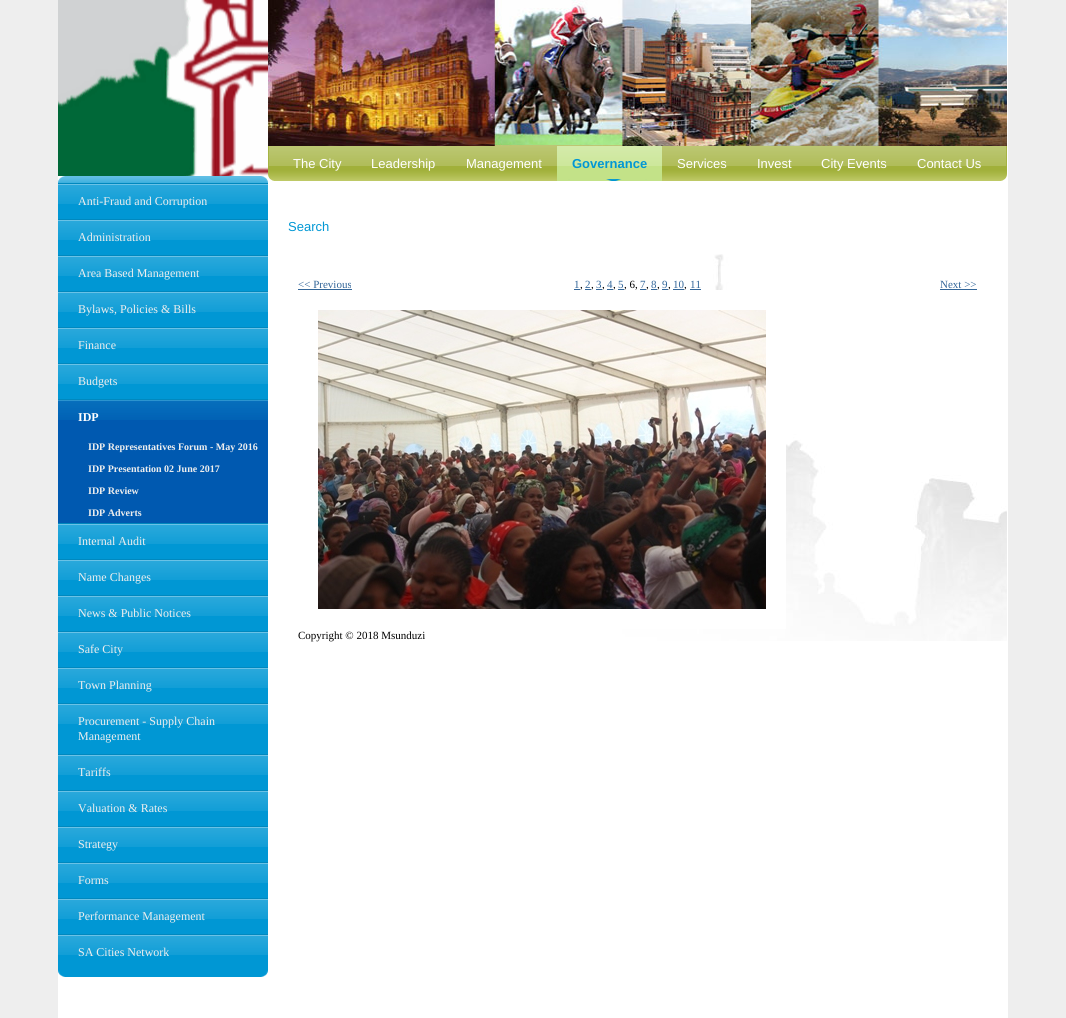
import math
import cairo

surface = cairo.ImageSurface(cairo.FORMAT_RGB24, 1066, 1018)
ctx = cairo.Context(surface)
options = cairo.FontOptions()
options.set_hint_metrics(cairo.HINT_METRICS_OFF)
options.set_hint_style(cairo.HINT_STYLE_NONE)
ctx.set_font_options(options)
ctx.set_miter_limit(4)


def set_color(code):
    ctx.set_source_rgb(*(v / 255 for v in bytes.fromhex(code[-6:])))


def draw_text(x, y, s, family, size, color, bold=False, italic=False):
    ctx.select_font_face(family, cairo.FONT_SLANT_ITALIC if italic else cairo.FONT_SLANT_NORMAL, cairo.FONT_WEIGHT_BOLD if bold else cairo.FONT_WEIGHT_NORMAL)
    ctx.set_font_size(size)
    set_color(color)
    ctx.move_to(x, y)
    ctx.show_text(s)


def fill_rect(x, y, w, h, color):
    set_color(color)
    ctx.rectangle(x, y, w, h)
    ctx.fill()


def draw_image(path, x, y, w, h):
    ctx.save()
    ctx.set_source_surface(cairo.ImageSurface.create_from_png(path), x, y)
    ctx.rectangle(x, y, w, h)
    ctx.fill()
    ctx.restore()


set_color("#eeeeee")
ctx.paint()
fill_rect(58, 0, 950, 1018, "#ffffff")
draw_image("assets/img1.png", 58, 0, 210, 176)
draw_image("assets/img2.png", 58, 176, 210, 7)
draw_image("assets/img3.png", 58, 183, 210, 36)
draw_text(78, 205, "Anti-Fraud and Corruption", "Liberation Serif", 12, "#eeeeee")
draw_image("assets/img3.png", 58, 219, 210, 36)
draw_text(78, 241, "Administration", "Liberation Serif", 12, "#eeeeee")
draw_image("assets/img3.png", 58, 255, 210, 36)
draw_text(78, 277, "Area Based Management", "Liberation Serif", 12, "#eeeeee")
draw_image("assets/img3.png", 58, 291, 210, 36)
draw_text(78, 313, "Bylaws, Policies & Bills", "Liberation Serif", 12, "#eeeeee")
draw_image("assets/img3.png", 58, 327, 210, 36)
draw_text(78, 349, "Finance", "Liberation Serif", 12, "#eeeeee")
draw_image("assets/img3.png", 58, 363, 210, 36)
draw_text(78, 385, "Budgets", "Liberation Serif", 12, "#eeeeee")
draw_image("assets/img4.png", 58, 399, 210, 36)
draw_text(78, 421, "IDP", "Liberation Serif", 12, "#ffffff", bold=True)
fill_rect(58, 435, 210, 88, "#0059b0")
draw_text(88, 450, "IDP Representatives Forum - May 2016", "Liberation Serif", 10, "#eeeeee", bold=True)
draw_text(88, 472, "IDP Presentation 02 June 2017", "Liberation Serif", 10, "#eeeeee", bold=True)
draw_text(88, 494, "IDP Review", "Liberation Serif", 10, "#eeeeee", bold=True)
draw_text(88, 516, "IDP Adverts", "Liberation Serif", 10, "#eeeeee", bold=True)
draw_image("assets/img3.png", 58, 523, 210, 36)
draw_text(78, 545, "Internal Audit", "Liberation Serif", 12, "#eeeeee")
draw_image("assets/img3.png", 58, 559, 210, 36)
draw_text(78, 581, "Name Changes", "Liberation Serif", 12, "#eeeeee")
draw_image("assets/img3.png", 58, 595, 210, 36)
draw_text(78, 617, "News & Public Notices", "Liberation Serif", 12, "#eeeeee")
draw_image("assets/img3.png", 58, 631, 210, 36)
draw_text(78, 653, "Safe City", "Liberation Serif", 12, "#eeeeee")
draw_image("assets/img3.png", 58, 667, 210, 36)
draw_text(78, 689, "Town Planning", "Liberation Serif", 12, "#eeeeee")
draw_image("assets/img5.png", 58, 703, 210, 51)
draw_text(78, 725, "Procurement - Supply Chain", "Liberation Serif", 12, "#eeeeee")
draw_text(78, 740, "Management", "Liberation Serif", 12, "#eeeeee")
draw_image("assets/img3.png", 58, 754, 210, 36)
draw_text(78, 776, "Tariffs", "Liberation Serif", 12, "#eeeeee")
draw_image("assets/img3.png", 58, 790, 210, 36)
draw_text(78, 812, "Valuation & Rates", "Liberation Serif", 12, "#eeeeee")
draw_image("assets/img3.png", 58, 826, 210, 36)
draw_text(78, 848, "Strategy", "Liberation Serif", 12, "#eeeeee")
draw_image("assets/img3.png", 58, 862, 210, 36)
draw_text(78, 884, "Forms", "Liberation Serif", 12, "#eeeeee")
draw_image("assets/img3.png", 58, 898, 210, 36)
draw_text(78, 920, "Performance Management", "Liberation Serif", 12, "#eeeeee")
draw_image("assets/img3.png", 58, 934, 210, 36)
draw_text(78, 956, "SA Cities Network", "Liberation Serif", 12, "#eeeeee")
draw_image("assets/img6.png", 58, 970, 210, 7)
draw_image("assets/img7.png", 268, 0, 739, 146)
draw_image("assets/img8.png", 274, 146, 727, 35)
draw_image("assets/img9.png", 1001, 146, 6, 35)
draw_image("assets/img10.png", 268, 146, 6, 35)
draw_text(293, 168, "The City", "Liberation Sans", 13, "#ffffff")
draw_text(371, 168, "Leadership", "Liberation Sans", 13, "#ffffff")
draw_text(466, 168, "Management", "Liberation Sans", 13, "#ffffff")
draw_image("assets/img11.png", 557, 146, 105, 35)
draw_text(572, 168, "Governance", "Liberation Sans", 13, "#0097d4", bold=True)
draw_text(677, 168, "Services", "Liberation Sans", 13, "#ffffff")
draw_text(757, 168, "Invest", "Liberation Sans", 13, "#ffffff")
draw_text(821, 168, "City Events", "Liberation Sans", 13, "#ffffff")
draw_text(917, 168, "Contact Us", "Liberation Sans", 13, "#ffffff")
draw_text(288, 231, "Search", "Liberation Sans", 13, "#0097d4")
draw_image("assets/img12.png", 619, 254, 388, 387)
draw_text(298, 288, "<< Previous", "Liberation Serif", 11, "#336699")
fill_rect(298, 289, 54, 1, "#336699")
draw_text(574, 288, "1", "Liberation Serif", 11, "#336699")
fill_rect(574, 289, 6, 1, "#336699")
draw_text(580, 288, ",", "Liberation Serif", 11, "#000000")
draw_text(585, 288, "2", "Liberation Serif", 11, "#336699")
fill_rect(585, 289, 6, 1, "#336699")
draw_text(591, 288, ",", "Liberation Serif", 11, "#000000")
draw_text(596, 288, "3", "Liberation Serif", 11, "#336699")
fill_rect(596, 289, 6, 1, "#336699")
draw_text(602, 288, ",", "Liberation Serif", 11, "#000000")
draw_text(607, 288, "4", "Liberation Serif", 11, "#336699")
fill_rect(607, 289, 6, 1, "#336699")
draw_text(613, 288, ",", "Liberation Serif", 11, "#000000")
draw_text(618, 288, "5", "Liberation Serif", 11, "#336699")
fill_rect(618, 289, 6, 1, "#336699")
draw_text(624, 288, ", 6,", "Liberation Serif", 11, "#000000")
draw_text(640, 288, "7", "Liberation Serif", 11, "#336699")
fill_rect(640, 289, 6, 1, "#336699")
draw_text(646, 288, ",", "Liberation Serif", 11, "#000000")
draw_text(651, 288, "8", "Liberation Serif", 11, "#336699")
fill_rect(651, 289, 6, 1, "#336699")
draw_text(657, 288, ",", "Liberation Serif", 11, "#000000")
draw_text(662, 288, "9", "Liberation Serif", 11, "#336699")
fill_rect(662, 289, 6, 1, "#336699")
draw_text(668, 288, ",", "Liberation Serif", 11, "#000000")
draw_text(673, 288, "10", "Liberation Serif", 11, "#336699")
fill_rect(673, 289, 11, 1, "#336699")
draw_text(684, 288, ",", "Liberation Serif", 11, "#000000")
draw_text(690, 288, "11", "Liberation Serif", 11, "#336699")
fill_rect(690, 289, 11, 1, "#336699")
draw_text(940, 288, "Next >>", "Liberation Serif", 11, "#336699")
fill_rect(940, 289, 37, 1, "#336699")
ctx.rectangle(308, 300, 468, 319)
set_color("#ffffff")
ctx.set_line_width(20)
ctx.stroke()
draw_image("assets/img13.png", 318, 310, 448, 299)
draw_text(298, 639, "Copyright © 2018 Msunduzi", "Liberation Serif", 11, "#000000")
surface.write_to_png("output.png")
